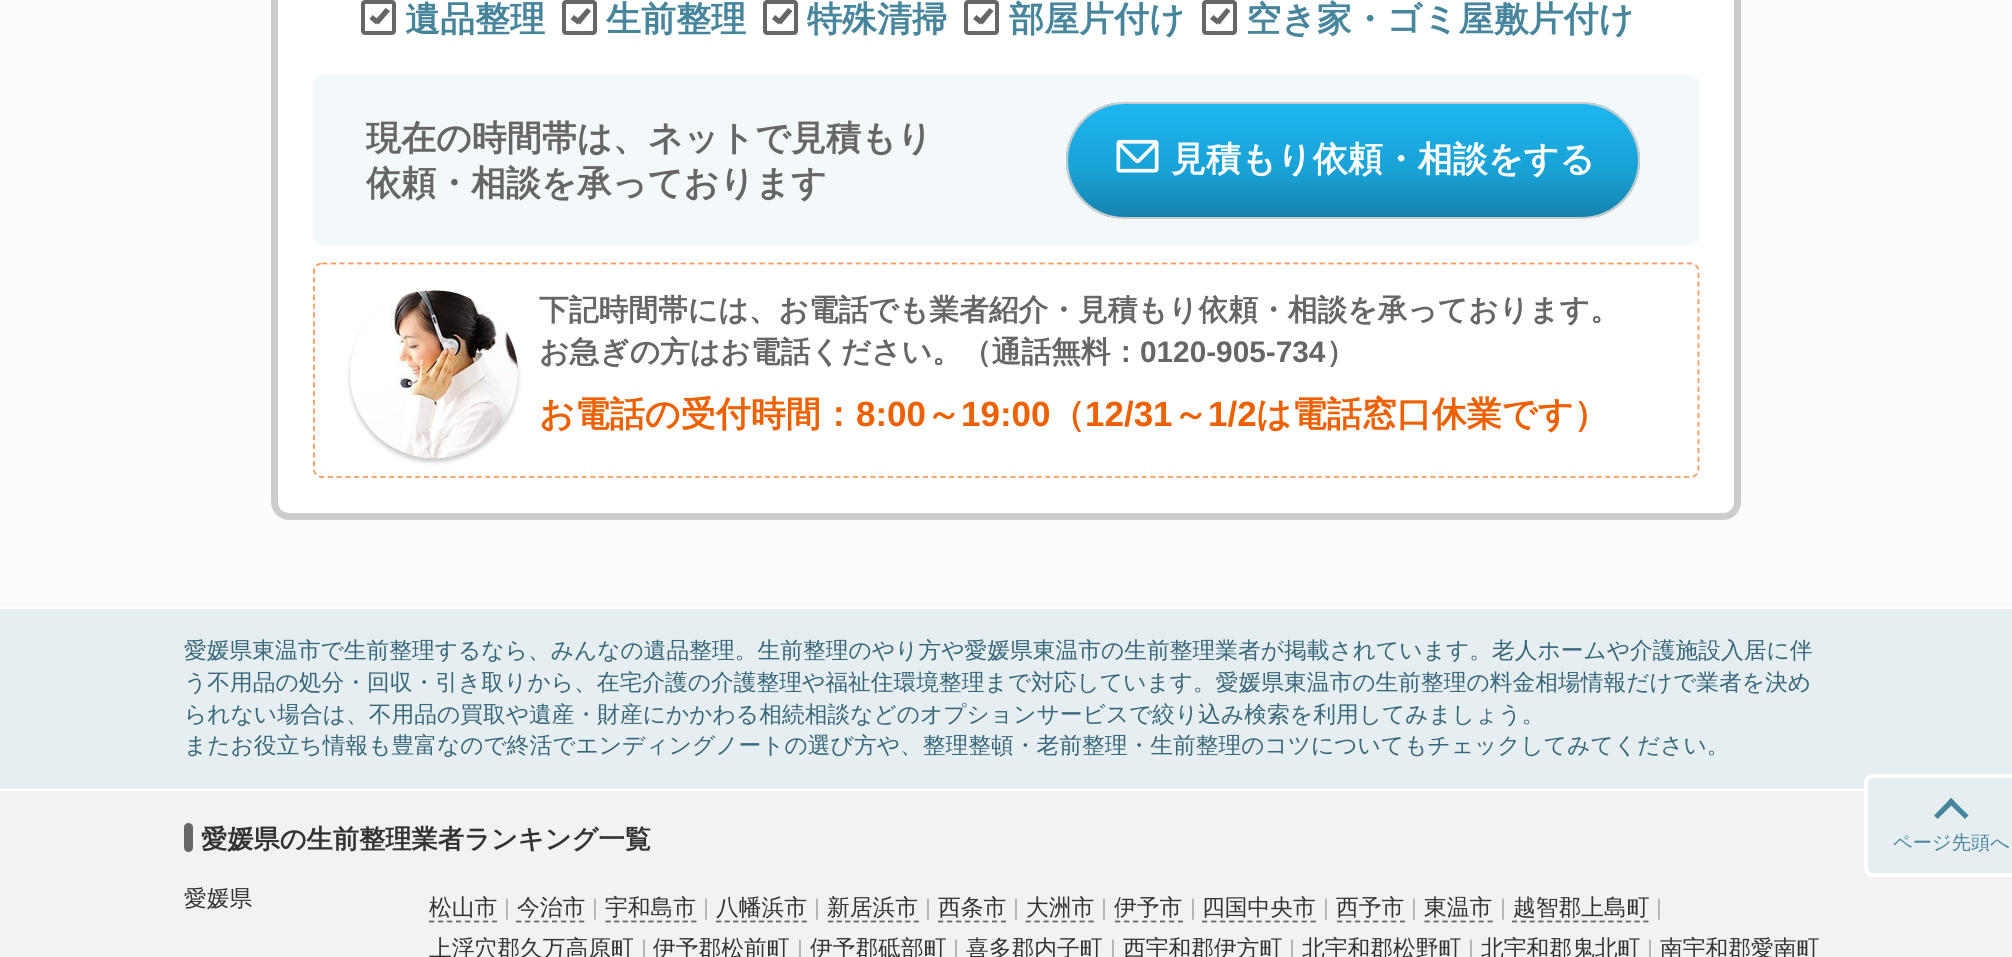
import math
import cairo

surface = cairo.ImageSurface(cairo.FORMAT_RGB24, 2012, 957)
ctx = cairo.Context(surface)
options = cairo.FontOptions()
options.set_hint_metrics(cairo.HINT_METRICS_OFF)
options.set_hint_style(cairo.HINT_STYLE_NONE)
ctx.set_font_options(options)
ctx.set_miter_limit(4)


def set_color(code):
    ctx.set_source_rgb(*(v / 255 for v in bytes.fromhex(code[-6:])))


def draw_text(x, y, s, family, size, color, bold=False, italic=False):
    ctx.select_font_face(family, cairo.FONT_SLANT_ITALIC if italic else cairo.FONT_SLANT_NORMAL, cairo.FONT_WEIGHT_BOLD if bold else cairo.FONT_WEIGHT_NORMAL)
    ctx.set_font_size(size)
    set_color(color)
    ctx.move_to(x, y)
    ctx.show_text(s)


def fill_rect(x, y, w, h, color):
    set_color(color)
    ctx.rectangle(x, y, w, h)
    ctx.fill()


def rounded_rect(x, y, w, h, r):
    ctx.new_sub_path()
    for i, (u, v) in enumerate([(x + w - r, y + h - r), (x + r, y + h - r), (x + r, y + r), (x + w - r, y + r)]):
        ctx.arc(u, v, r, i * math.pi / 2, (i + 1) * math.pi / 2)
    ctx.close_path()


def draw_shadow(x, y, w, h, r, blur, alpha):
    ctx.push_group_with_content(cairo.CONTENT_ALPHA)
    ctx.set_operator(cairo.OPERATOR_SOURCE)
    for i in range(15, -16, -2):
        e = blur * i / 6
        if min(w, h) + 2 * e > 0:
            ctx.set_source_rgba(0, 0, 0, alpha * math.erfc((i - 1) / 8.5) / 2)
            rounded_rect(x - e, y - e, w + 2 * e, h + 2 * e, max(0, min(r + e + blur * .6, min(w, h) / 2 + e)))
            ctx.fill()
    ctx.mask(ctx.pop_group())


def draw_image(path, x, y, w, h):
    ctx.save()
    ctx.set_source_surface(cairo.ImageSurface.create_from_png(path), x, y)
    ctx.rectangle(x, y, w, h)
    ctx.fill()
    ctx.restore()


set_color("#fafcfd")
ctx.paint()
set_color("#ffffff")
rounded_rect(274.5, -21.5, 1463, 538, 14.5)
ctx.fill_preserve()
set_color("#cccccc")
ctx.set_line_width(7)
ctx.stroke()
rounded_rect(363, 2, 31, 31, 2)
set_color("#666666")
ctx.set_line_width(4)
ctx.stroke()
draw_text(405, 31, "遺品整理", "WenQuanYi Zen Hei", 35, "#47859d", bold=True)
set_color("#666666")
ctx.new_path()
ctx.move_to(385.5, 8)
ctx.line_to(390, 11)
ctx.line_to(378.5, 24.5)
ctx.line_to(374.5, 21)
ctx.close_path()
ctx.fill()
ctx.new_path()
ctx.move_to(372.5, 15)
ctx.line_to(379.5, 20.5)
ctx.line_to(376, 24.5)
ctx.line_to(369.5, 19)
ctx.close_path()
ctx.fill()
rounded_rect(564, 2, 31, 31, 2)
ctx.stroke()
draw_text(606, 31, "生前整理", "WenQuanYi Zen Hei", 35, "#47859d", bold=True)
set_color("#666666")
ctx.new_path()
ctx.move_to(587, 8)
ctx.line_to(591, 11)
ctx.line_to(580, 24.5)
ctx.line_to(575.5, 21)
ctx.close_path()
ctx.fill()
ctx.new_path()
ctx.move_to(574, 15)
ctx.line_to(580.5, 20.5)
ctx.line_to(577.5, 24.5)
ctx.line_to(570.5, 19)
ctx.close_path()
ctx.fill()
rounded_rect(765, 2, 31, 31, 2)
ctx.stroke()
draw_text(807, 31, "特殊清掃", "WenQuanYi Zen Hei", 35, "#47859d", bold=True)
set_color("#666666")
ctx.new_path()
ctx.move_to(788, 8)
ctx.line_to(792.5, 11)
ctx.line_to(781, 24.5)
ctx.line_to(777, 21)
ctx.close_path()
ctx.fill()
ctx.new_path()
ctx.move_to(775, 15)
ctx.line_to(782, 20.5)
ctx.line_to(778.5, 24.5)
ctx.line_to(772, 19)
ctx.close_path()
ctx.fill()
rounded_rect(966, 2, 31, 31, 2)
ctx.stroke()
draw_text(1009, 31, "部屋片付け", "WenQuanYi Zen Hei", 35, "#47859d", bold=True)
set_color("#666666")
ctx.new_path()
ctx.move_to(989.5, 8)
ctx.line_to(993.5, 11)
ctx.line_to(982.5, 24.5)
ctx.line_to(978, 21)
ctx.close_path()
ctx.fill()
ctx.new_path()
ctx.move_to(976.5, 15)
ctx.line_to(983, 20.5)
ctx.line_to(980, 24.5)
ctx.line_to(973, 19)
ctx.close_path()
ctx.fill()
rounded_rect(1204, 2, 31, 31, 2)
ctx.stroke()
draw_text(1246, 31, "空き家・ゴミ屋敷片付け", "WenQuanYi Zen Hei", 35, "#47859d", bold=True)
set_color("#666666")
ctx.new_path()
ctx.move_to(1226.5, 8)
ctx.line_to(1230.5, 11)
ctx.line_to(1219.5, 24.5)
ctx.line_to(1215.5, 21)
ctx.close_path()
ctx.fill()
ctx.new_path()
ctx.move_to(1213.5, 15)
ctx.line_to(1220, 20.5)
ctx.line_to(1217, 24.5)
ctx.line_to(1210, 19)
ctx.close_path()
ctx.fill()
set_color("#f3f8fa")
rounded_rect(313, 75, 1386, 170, 9)
ctx.fill()
draw_text(366, 150, "現在の時間帯は、ネットで見積もり", "WenQuanYi Zen Hei", 35, "#666666", bold=True)
draw_text(366, 195, "依頼・相談を承っております", "WenQuanYi Zen Hei", 35, "#666666", bold=True)
ctx.save()
rounded_rect(1066, 102, 574, 117, 58.5)
ctx.clip()
gradient = cairo.LinearGradient(1353, 103, 1353, 217)
gradient.add_color_stop_rgba(0, 0.114, 0.714, 0.941, 1)
gradient.add_color_stop_rgba(0.6, 0.098, 0.631, 0.835, 1)
gradient.add_color_stop_rgba(1, 0.082, 0.51, 0.678, 1)
ctx.set_source(gradient)
ctx.rectangle(1066, 103, 574, 114)
ctx.fill()
ctx.restore()
rounded_rect(1067, 103, 572, 115, 57.5)
set_color("#cccccc")
ctx.set_line_width(2)
ctx.stroke()
draw_image("assets/img1.png", 1116, 139, 43, 34)
draw_text(1171, 171, "見積もり依頼・相談をする", "WenQuanYi Zen Hei", 35, "#ffffff", bold=True)
ctx.new_path()
ctx.move_to(322, 263.5)
ctx.line_to(1690.5, 263.5)
ctx.curve_to(1695, 263.5, 1698.5, 267, 1698.5, 271)
ctx.line_to(1698.5, 469)
ctx.curve_to(1698.5, 473.5, 1695, 477, 1690.5, 477)
ctx.line_to(322, 477)
ctx.curve_to(317.5, 477, 314, 473.5, 314, 469)
ctx.line_to(314, 271)
ctx.curve_to(314, 267, 317.5, 263.5, 322, 263.5)
ctx.close_path()
set_color("#f89a5b")
ctx.set_line_width(1.8)
ctx.set_dash([5.25, 3.5])
ctx.stroke()
set_color("#cccccc")
draw_shadow(350, 294, 168, 168, 84, 2, 1)
draw_image("assets/img2.png", 350, 290, 168, 169)
draw_text(539, 320, "下記時間帯には、お電話でも業者紹介・見積もり依頼・相談を承っております。", "WenQuanYi Zen Hei", 29.75, "#666666", bold=True)
draw_text(539, 362, "お急ぎの方はお電話ください。（通話無料：", "WenQuanYi Zen Hei", 29.75, "#666666", bold=True)
draw_text(1140, 362, "0120-905-734", "Liberation Sans", 29.75, "#666666", bold=True)
draw_text(1326, 362, "）", "WenQuanYi Zen Hei", 29.75, "#666666", bold=True)
draw_text(539, 426, "お電話の受付時間：", "WenQuanYi Zen Hei", 35, "#ed6103", bold=True)
draw_text(856, 426, "8:00", "Liberation Sans", 35, "#ed6103", bold=True)
draw_text(926, 426, "～", "WenQuanYi Zen Hei", 35, "#ed6103", bold=True)
draw_text(961, 426, "19:00", "Liberation Sans", 35, "#ed6103", bold=True)
draw_text(1050, 426, "（", "WenQuanYi Zen Hei", 35, "#ed6103", bold=True)
draw_text(1085, 426, "12/31", "Liberation Sans", 35, "#ed6103", bold=True)
draw_text(1173, 426, "～", "WenQuanYi Zen Hei", 35, "#ed6103", bold=True)
draw_text(1208, 426, "1/2", "Liberation Sans", 35, "#ed6103", bold=True)
draw_text(1256, 426, "は電話窓口休業です）", "WenQuanYi Zen Hei", 35, "#ed6103", bold=True)
fill_rect(0, 609, 2012, 180, "#e6eef2")
fill_rect(0, 607, 2012, 2, "#ffffff")
draw_text(184, 658, "愛媛県東温市で生前整理するなら、みんなの遺品整理。生前整理のやり方や愛媛県東温市の生前整理業者が掲載されています。老人ホームや介護施設入居に伴", "WenQuanYi Zen Hei Medium", 22.75, "#37677a")
draw_text(184, 690, "う不用品の処分・回収・引き取りから、在宅介護の介護整理や福祉住環境整理まで対応しています。愛媛県東温市の生前整理の料金相場情報だけで業者を決め", "WenQuanYi Zen Hei Medium", 22.75, "#37677a")
draw_text(184, 722, "られない場合は、不用品の買取や遺産・財産にかかわる相続相談などのオプションサービスで絞り込み検索を利用してみましょう。", "WenQuanYi Zen Hei Medium", 22.75, "#37677a")
draw_text(184, 753, "またお役立ち情報も豊富なので終活でエンディングノートの選び方や、整理整頓・老前整理・生前整理のコツについてもチェックしてみてください。", "WenQuanYi Zen Hei Medium", 22.75, "#37677a")
fill_rect(0, 791, 2012, 166, "#f2f2f2")
fill_rect(0, 789, 1864, 2, "#ffffff")
set_color("#666666")
rounded_rect(184, 823, 9, 29, 4.5)
ctx.fill()
draw_text(201, 848, "愛媛県の生前整理業者ランキング一覧", "WenQuanYi Zen Hei", 26.25, "#333333", bold=True)
draw_text(184, 906, "愛媛県", "WenQuanYi Zen Hei Medium", 22.75, "#333333")
draw_text(429, 915, "松山市", "WenQuanYi Zen Hei Medium", 22.75, "#333333")
ctx.new_path()
ctx.move_to(429, 921.5)
ctx.line_to(497, 921.5)
set_color("#666666")
ctx.set_dash([5.25, 3.75])
ctx.stroke()
draw_text(504, 915, "|", "Liberation Sans", 22.75, "#b3b3b3")
draw_text(517, 915, "今治市", "WenQuanYi Zen Hei Medium", 22.75, "#333333")
ctx.new_path()
ctx.move_to(516, 921.5)
ctx.line_to(584.5, 921.5)
set_color("#666666")
ctx.stroke()
draw_text(592, 915, "|", "Liberation Sans", 22.75, "#b3b3b3")
draw_text(605, 915, "宇和島市", "WenQuanYi Zen Hei Medium", 22.75, "#333333")
ctx.new_path()
ctx.move_to(605.5, 921.5)
ctx.line_to(696.5, 921.5)
set_color("#666666")
ctx.set_dash([5.25, 3.32])
ctx.stroke()
draw_text(703, 915, "|", "Liberation Sans", 22.75, "#b3b3b3")
draw_text(716, 915, "八幡浜市", "WenQuanYi Zen Hei Medium", 22.75, "#333333")
ctx.new_path()
ctx.move_to(716, 921.5)
ctx.line_to(807, 921.5)
set_color("#666666")
ctx.stroke()
draw_text(814, 915, "|", "Liberation Sans", 22.75, "#b3b3b3")
draw_text(827, 915, "新居浜市", "WenQuanYi Zen Hei Medium", 22.75, "#333333")
ctx.new_path()
ctx.move_to(828, 921.5)
ctx.line_to(919, 921.5)
set_color("#666666")
ctx.stroke()
draw_text(925, 915, "|", "Liberation Sans", 22.75, "#b3b3b3")
draw_text(938, 915, "西条市", "WenQuanYi Zen Hei Medium", 22.75, "#333333")
ctx.new_path()
ctx.move_to(938, 921.5)
ctx.line_to(1006, 921.5)
set_color("#666666")
ctx.set_dash([5.25, 3.75])
ctx.stroke()
draw_text(1013, 915, "|", "Liberation Sans", 22.75, "#b3b3b3")
draw_text(1026, 915, "大洲市", "WenQuanYi Zen Hei Medium", 22.75, "#333333")
ctx.new_path()
ctx.move_to(1025.5, 921.5)
ctx.line_to(1094, 921.5)
set_color("#666666")
ctx.stroke()
draw_text(1101, 915, "|", "Liberation Sans", 22.75, "#b3b3b3")
draw_text(1114, 915, "伊予市", "WenQuanYi Zen Hei Medium", 22.75, "#333333")
ctx.new_path()
ctx.move_to(1115, 921.5)
ctx.line_to(1183, 921.5)
set_color("#666666")
ctx.stroke()
draw_text(1190, 915, "|", "Liberation Sans", 22.75, "#b3b3b3")
draw_text(1202, 915, "四国中央市", "WenQuanYi Zen Hei Medium", 22.75, "#333333")
ctx.new_path()
ctx.move_to(1202, 921.5)
ctx.line_to(1316, 921.5)
set_color("#666666")
ctx.set_dash([5.25, 3.8])
ctx.stroke()
draw_text(1323, 915, "|", "Liberation Sans", 22.75, "#b3b3b3")
draw_text(1336, 915, "西予市", "WenQuanYi Zen Hei Medium", 22.75, "#333333")
ctx.new_path()
ctx.move_to(1337, 921.5)
ctx.line_to(1405, 921.5)
set_color("#666666")
ctx.set_dash([5.25, 3.75])
ctx.stroke()
draw_text(1411, 915, "|", "Liberation Sans", 22.75, "#b3b3b3")
draw_text(1424, 915, "東温市", "WenQuanYi Zen Hei Medium", 22.75, "#333333")
ctx.new_path()
ctx.move_to(1424.5, 921.5)
ctx.line_to(1493, 921.5)
set_color("#666666")
ctx.stroke()
draw_text(1500, 915, "|", "Liberation Sans", 22.75, "#b3b3b3")
draw_text(1513, 915, "越智郡上島町", "WenQuanYi Zen Hei Medium", 22.75, "#333333")
ctx.new_path()
ctx.move_to(1512, 921.5)
ctx.line_to(1648.5, 921.5)
set_color("#666666")
ctx.set_dash([5.25, 3.5])
ctx.stroke()
draw_text(1656, 915, "|", "Liberation Sans", 22.75, "#b3b3b3")
draw_text(429, 956, "上浮穴郡久万高原町", "WenQuanYi Zen Hei Medium", 22.75, "#333333")
draw_text(641, 956, "|", "Liberation Sans", 22.75, "#b3b3b3")
draw_text(653, 956, "伊予郡松前町", "WenQuanYi Zen Hei Medium", 22.75, "#333333")
draw_text(797, 956, "|", "Liberation Sans", 22.75, "#b3b3b3")
draw_text(810, 956, "伊予郡砥部町", "WenQuanYi Zen Hei Medium", 22.75, "#333333")
draw_text(953, 956, "|", "Liberation Sans", 22.75, "#b3b3b3")
draw_text(966, 956, "喜多郡内子町", "WenQuanYi Zen Hei Medium", 22.75, "#333333")
draw_text(1110, 956, "|", "Liberation Sans", 22.75, "#b3b3b3")
draw_text(1123, 956, "西宇和郡伊方町", "WenQuanYi Zen Hei Medium", 22.75, "#333333")
draw_text(1289, 956, "|", "Liberation Sans", 22.75, "#b3b3b3")
draw_text(1302, 956, "北宇和郡松野町", "WenQuanYi Zen Hei Medium", 22.75, "#333333")
draw_text(1468, 956, "|", "Liberation Sans", 22.75, "#b3b3b3")
draw_text(1481, 956, "北宇和郡鬼北町", "WenQuanYi Zen Hei Medium", 22.75, "#333333")
draw_text(1647, 956, "|", "Liberation Sans", 22.75, "#b3b3b3")
draw_text(1660, 956, "南宇和郡愛南町", "WenQuanYi Zen Hei Medium", 22.75, "#333333")
set_color("#e6eef2")
rounded_rect(1866, 776, 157, 99, 7)
ctx.fill_preserve()
set_color("#ffffff")
ctx.set_line_width(4)
ctx.set_dash([])
ctx.stroke()
set_color("#47859d")
ctx.new_path()
ctx.move_to(1934, 815.5)
ctx.line_to(1951, 798)
ctx.line_to(1955, 802)
ctx.line_to(1937.5, 819)
ctx.close_path()
ctx.fill()
ctx.new_path()
ctx.move_to(1947.5, 802)
ctx.line_to(1951, 798)
ctx.line_to(1968.5, 815.5)
ctx.line_to(1965, 819)
ctx.close_path()
ctx.fill()
draw_text(1893, 849, "ページ先頭へ", "WenQuanYi Zen Hei Medium", 19.25, "#47859d")
surface.write_to_png("output.png")
